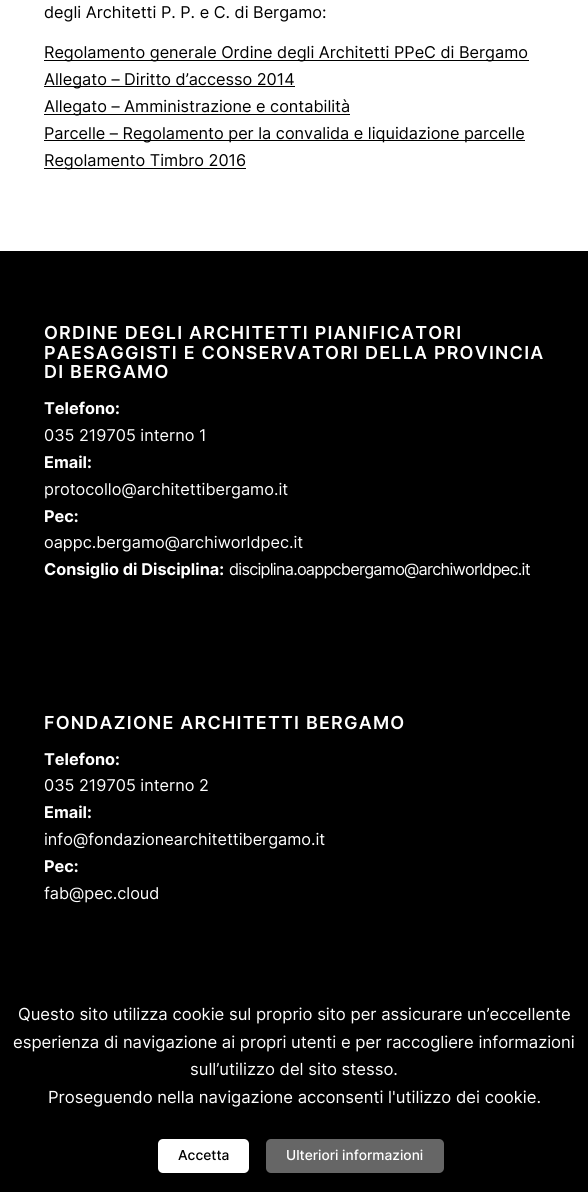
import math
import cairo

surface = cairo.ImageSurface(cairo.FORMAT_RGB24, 588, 1192)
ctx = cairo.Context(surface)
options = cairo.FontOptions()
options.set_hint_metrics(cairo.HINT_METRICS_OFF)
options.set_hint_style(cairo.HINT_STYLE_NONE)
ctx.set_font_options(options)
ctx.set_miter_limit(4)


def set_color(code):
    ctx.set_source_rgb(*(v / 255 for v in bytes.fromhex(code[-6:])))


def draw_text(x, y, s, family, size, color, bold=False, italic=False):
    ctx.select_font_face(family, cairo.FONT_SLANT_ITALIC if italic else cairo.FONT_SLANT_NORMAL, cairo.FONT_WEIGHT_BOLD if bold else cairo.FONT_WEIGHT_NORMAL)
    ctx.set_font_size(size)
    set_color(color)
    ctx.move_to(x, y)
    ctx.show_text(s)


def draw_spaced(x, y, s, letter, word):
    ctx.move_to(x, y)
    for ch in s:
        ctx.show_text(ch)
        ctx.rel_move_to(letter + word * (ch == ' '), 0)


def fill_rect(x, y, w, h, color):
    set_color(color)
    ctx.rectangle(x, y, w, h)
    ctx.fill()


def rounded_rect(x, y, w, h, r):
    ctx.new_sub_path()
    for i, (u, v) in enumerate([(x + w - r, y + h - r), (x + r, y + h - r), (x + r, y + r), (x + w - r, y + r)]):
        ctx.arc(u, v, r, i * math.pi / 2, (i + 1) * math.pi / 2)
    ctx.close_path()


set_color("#ffffff")
ctx.paint()
draw_text(44, 18, "degli Architetti P. P. e C. di Bergamo:", "Inter", 16.25, "#000000")
fill_rect(44, 60, 485, 1, "#000000")
draw_text(44, 58, "Regolamento generale Ordine degli Architetti PPeC di Bergamo", "Inter", 16.25, "#000000")
fill_rect(44, 86, 251, 1, "#000000")
draw_text(44, 85, "Allegato – Diritto d’accesso 2014", "Inter", 16.25, "#000000")
fill_rect(44, 114, 306, 1, "#000000")
draw_text(44, 112, "Allegato – Amministrazione e contabilità", "Inter", 16.25, "#000000")
fill_rect(44, 140, 481, 1, "#000000")
draw_text(44, 139, "Parcelle – Regolamento per la convalida e liquidazione parcelle", "Inter", 16.25, "#000000")
fill_rect(44, 168, 202, 1, "#000000")
draw_text(44, 166, "Regolamento Timbro 2016", "Inter", 16.25, "#000000")
fill_rect(0, 251, 588, 941, "#000000")
ctx.select_font_face("Inter SemiBold")
ctx.set_font_size(17.9)
set_color("#ffffff")
draw_spaced(44, 339, "ORDINE DEGLI ARCHITETTI PIANIFICATORI", 1.25, 0)
draw_spaced(44, 359, "PAESAGGISTI E CONSERVATORI DELLA PROVINCIA", 1.25, 0)
draw_spaced(44, 378, "DI BERGAMO", 1.25, 0)
draw_text(44, 414, "Telefono:", "Inter", 16.25, "#ffffff", bold=True)
draw_text(44, 441, "035 219705 interno 1", "Inter", 16.25, "#ffffff")
draw_text(44, 468, "Email:", "Inter", 16.25, "#ffffff", bold=True)
draw_text(44, 495, "protocollo@architettibergamo.it", "Inter", 16.25, "#ffffff")
draw_text(44, 522, "Pec:", "Inter", 16.25, "#ffffff", bold=True)
draw_text(44, 548, "oappc.bergamo@archiworldpec.it", "Inter", 16.25, "#ffffff")
draw_text(44, 575, "Consiglio di Disciplina:", "Inter", 16.25, "#ffffff", bold=True)
ctx.select_font_face("Inter")
draw_spaced(229, 575, "disciplina.oappcbergamo@archiworldpec.it", -0.75, 0)
ctx.select_font_face("Inter SemiBold")
ctx.set_font_size(17.9)
draw_spaced(44, 729, "FONDAZIONE ARCHITETTI BERGAMO", 1.25, 0)
draw_text(44, 765, "Telefono:", "Inter", 16.25, "#ffffff", bold=True)
draw_text(44, 791, "035 219705 interno 2", "Inter", 16.25, "#ffffff")
draw_text(44, 818, "Email:", "Inter", 16.25, "#ffffff", bold=True)
draw_text(44, 845, "info@fondazionearchitettibergamo.it", "Inter", 16.25, "#ffffff")
draw_text(44, 872, "Pec:", "Inter", 16.25, "#ffffff", bold=True)
draw_text(44, 899, "fab@pec.cloud", "Inter", 16.25, "#ffffff")
draw_text(18, 1020, "Questo sito utilizza cookie sul proprio sito per assicurare un’eccellente", "Inter", 16.65, "#ffffff")
draw_text(13, 1048, "esperienza di navigazione ai propri utenti e per raccogliere informazioni", "Inter", 16.65, "#ffffff")
draw_text(190, 1075, "sull’utilizzo del sito stesso.", "Inter", 16.65, "#ffffff")
draw_text(48, 1103, "Proseguendo nella navigazione acconsenti l'utilizzo dei cookie.", "Inter", 16.65, "#ffffff")
rounded_rect(158, 1139, 91, 34, 5)
ctx.fill()
draw_text(178, 1160, "Accetta", "Inter Medium", 13.75, "#000000")
set_color("#666666")
rounded_rect(266, 1139, 178, 34, 5)
ctx.fill()
draw_text(286, 1160, "Ulteriori informazioni", "Inter Medium", 13.75, "#ffffff")
surface.write_to_png("output.png")
